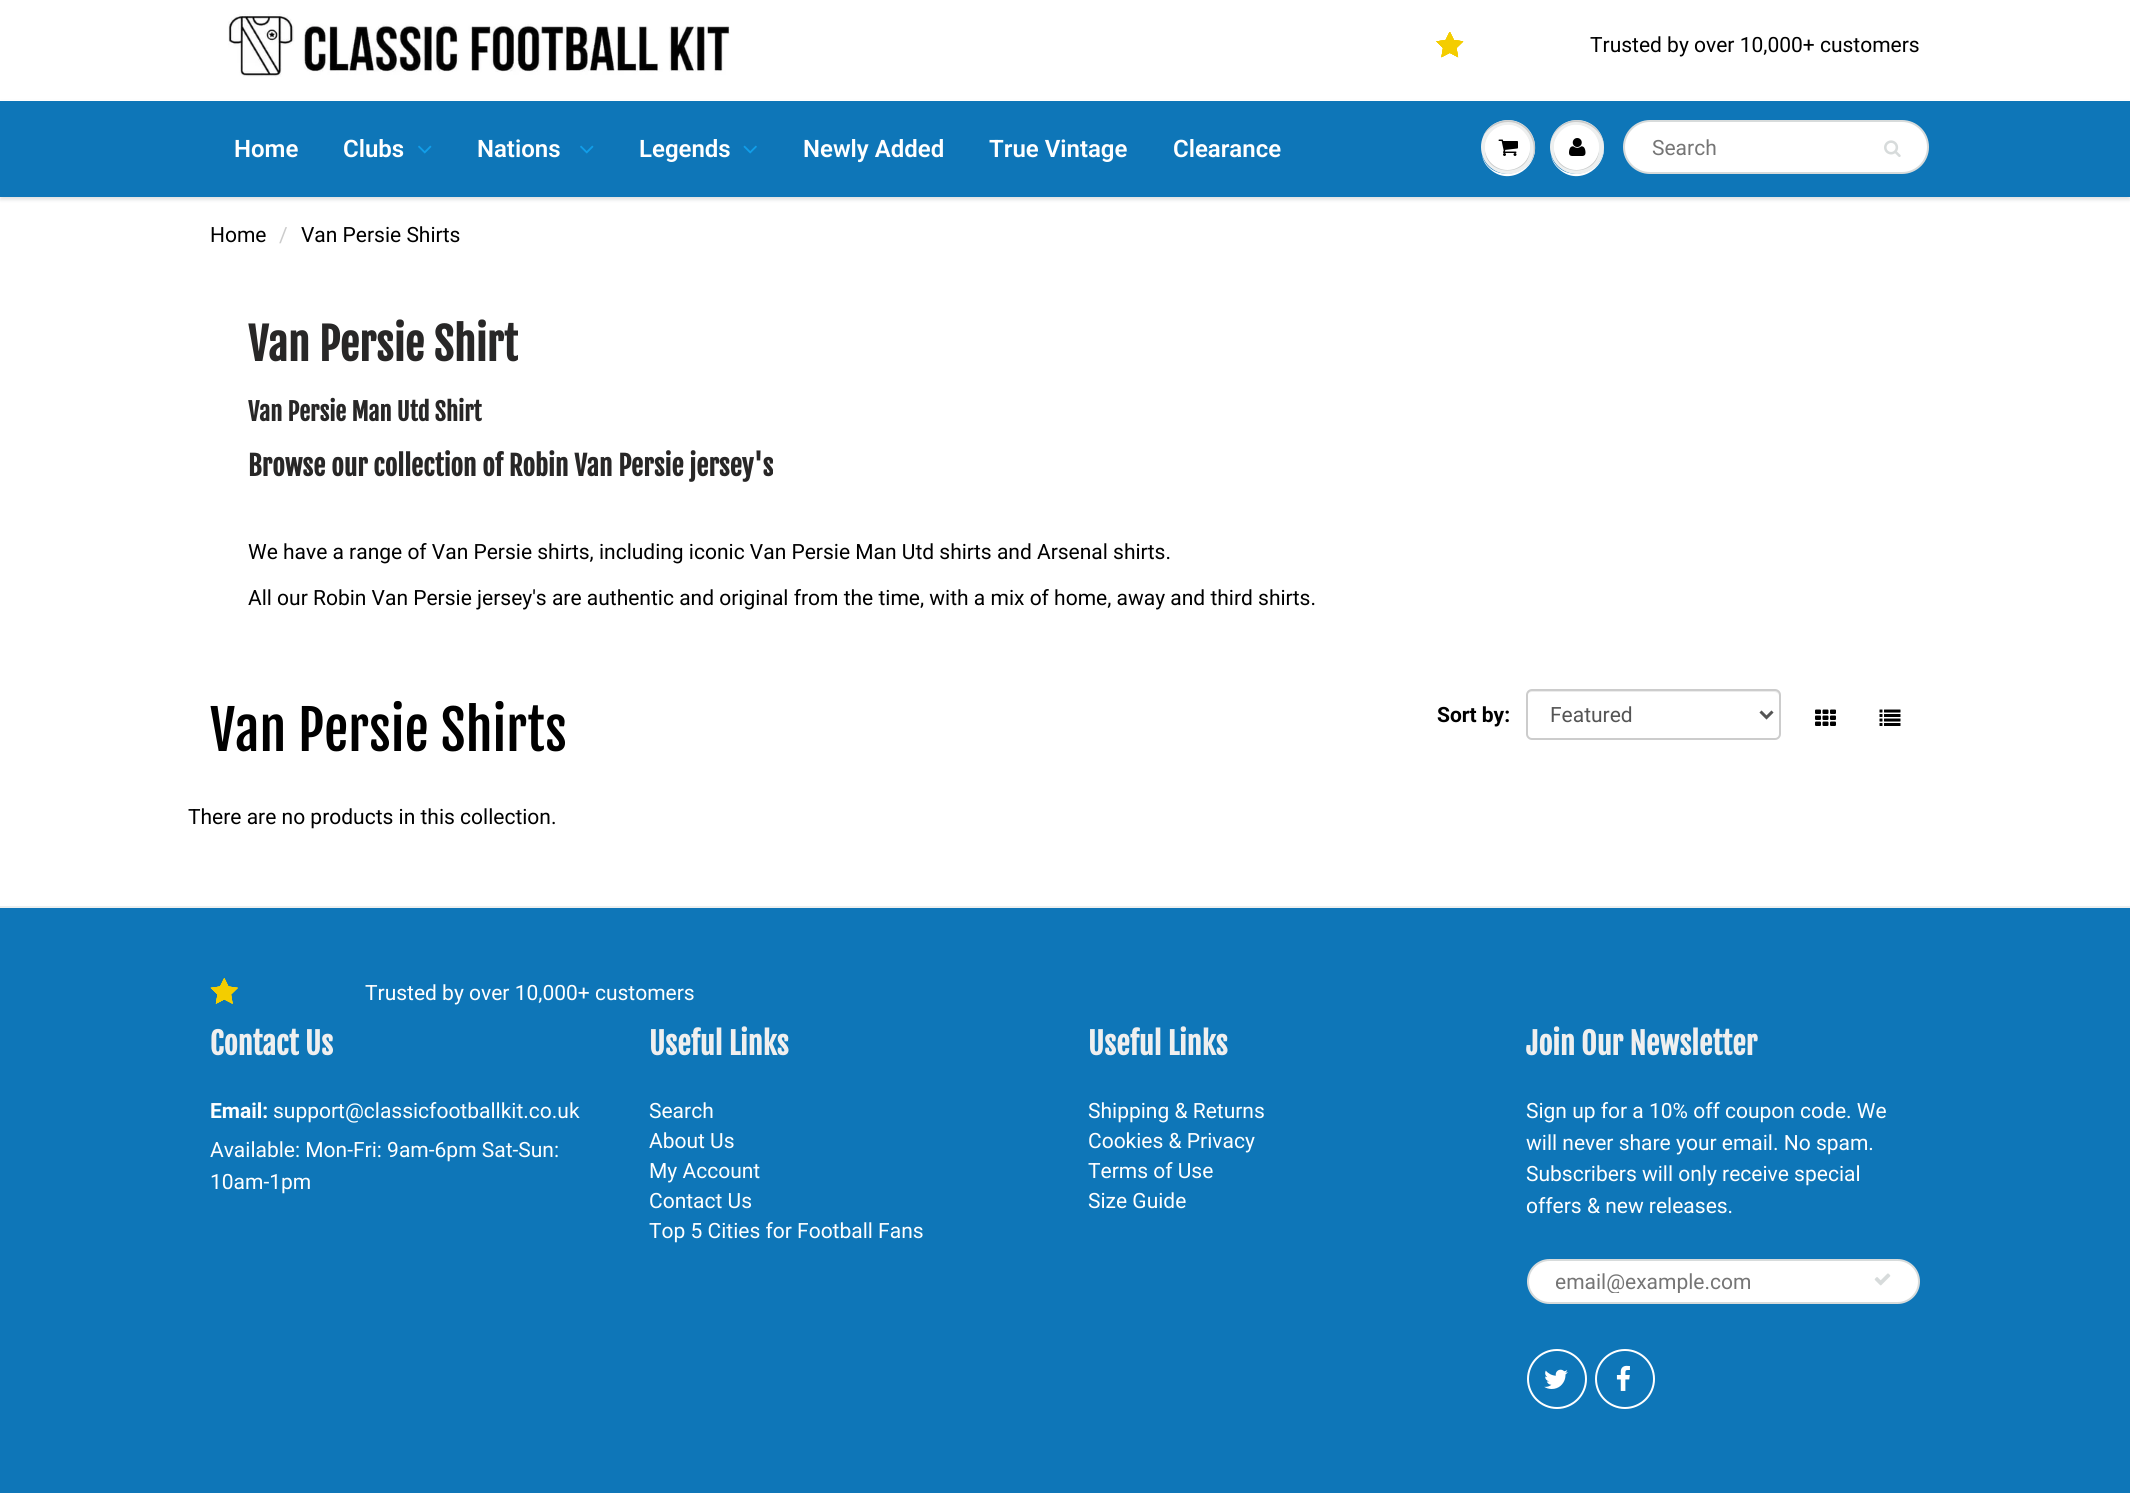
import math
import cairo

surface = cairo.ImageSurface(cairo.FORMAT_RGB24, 2130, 1493)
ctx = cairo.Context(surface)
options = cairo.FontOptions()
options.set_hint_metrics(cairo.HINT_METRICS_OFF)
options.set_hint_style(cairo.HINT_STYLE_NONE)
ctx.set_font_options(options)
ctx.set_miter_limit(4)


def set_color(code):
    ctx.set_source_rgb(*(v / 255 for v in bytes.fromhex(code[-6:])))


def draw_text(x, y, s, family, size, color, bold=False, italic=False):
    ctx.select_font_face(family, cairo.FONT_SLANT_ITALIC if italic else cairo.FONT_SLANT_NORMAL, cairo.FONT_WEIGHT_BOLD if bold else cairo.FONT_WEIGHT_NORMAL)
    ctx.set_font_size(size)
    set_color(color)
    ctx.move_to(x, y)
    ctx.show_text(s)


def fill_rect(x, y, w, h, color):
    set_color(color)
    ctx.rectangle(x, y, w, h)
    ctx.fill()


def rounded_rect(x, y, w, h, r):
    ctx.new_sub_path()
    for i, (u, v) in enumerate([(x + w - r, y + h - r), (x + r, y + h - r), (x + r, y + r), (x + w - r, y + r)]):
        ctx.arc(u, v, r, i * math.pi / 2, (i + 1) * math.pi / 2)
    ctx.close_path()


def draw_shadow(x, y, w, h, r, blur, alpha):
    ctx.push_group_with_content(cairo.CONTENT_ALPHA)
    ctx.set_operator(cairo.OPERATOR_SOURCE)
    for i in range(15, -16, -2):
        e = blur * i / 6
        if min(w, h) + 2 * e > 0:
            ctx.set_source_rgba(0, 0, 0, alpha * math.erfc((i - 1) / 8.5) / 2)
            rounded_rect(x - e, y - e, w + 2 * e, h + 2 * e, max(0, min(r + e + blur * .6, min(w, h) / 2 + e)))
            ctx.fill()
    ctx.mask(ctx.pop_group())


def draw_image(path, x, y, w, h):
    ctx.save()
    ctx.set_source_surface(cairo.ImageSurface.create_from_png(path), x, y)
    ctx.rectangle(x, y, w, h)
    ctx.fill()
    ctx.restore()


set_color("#ffffff")
ctx.paint()
draw_image("assets/img1.png", 228, 13, 502, 64)
draw_image("assets/img2.png", 1436, 32, 28, 26)
draw_text(1590, 52, "Trusted by over 10,000+ customers", "Roboto", 21, "#000000")
set_color("#0b191c")
draw_shadow(0, 102, 2130, 98, 0, 1.5, 0.12)
fill_rect(0, 101, 2130, 96, "#0e76b8")
fill_rect(0, 100, 2130, 1, "#ffffff")
draw_text(234, 157, "Home", "Roboto SemiBold", 24, "#ffffff")
draw_text(343, 157, "Clubs", "Roboto SemiBold", 24, "#ffffff")
draw_image("assets/img3.png", 418, 145, 14, 9)
draw_text(477, 157, "Nations", "Roboto SemiBold", 24, "#ffffff")
draw_image("assets/img3.png", 580, 145, 14, 9)
draw_text(639, 157, "Legends", "Roboto SemiBold", 24, "#ffffff")
draw_image("assets/img4.png", 743, 145, 14, 9)
draw_text(803, 157, "Newly Added", "Roboto SemiBold", 24, "#ffffff")
draw_text(989, 157, "True Vintage", "Roboto SemiBold", 24, "#ffffff")
draw_text(1173, 157, "Clearance", "Roboto SemiBold", 24, "#ffffff")
ctx.new_path()
ctx.move_to(1482, 155)
ctx.curve_to(1483, 161, 1486, 166, 1491, 170)
ctx.curve_to(1511, 187, 1541, 166, 1534, 141)
ctx.curve_to(1541, 175, 1491, 187, 1482, 155)
ctx.close_path()
ctx.fill()
set_color("#edefef")
ctx.arc(1508, 147, 27, 0, 2 * math.pi)
ctx.fill()
set_color("#c9cbcb")
ctx.new_path()
ctx.move_to(1508, 122)
ctx.curve_to(1529, 122, 1540, 146, 1530, 163)
ctx.curve_to(1546, 141, 1522, 111, 1496, 123)
ctx.curve_to(1491, 125, 1486, 130, 1483, 136)
ctx.curve_to(1488, 128, 1498, 122, 1508, 122)
ctx.close_path()
ctx.fill()
ctx.new_path()
ctx.move_to(1485, 148)
ctx.curve_to(1484, 178, 1531, 178, 1530, 148)
ctx.curve_to(1529, 176, 1486, 176, 1485, 148)
ctx.close_path()
ctx.fill()
set_color("#ffffff")
ctx.arc(1507.5, 147.5, 22.5, 0, 2 * math.pi)
ctx.fill()
ctx.new_path()
ctx.move_to(1508, 126)
ctx.curve_to(1524, 126, 1531, 140, 1529, 153)
ctx.curve_to(1531, 147, 1530, 140, 1526, 135)
ctx.curve_to(1511, 112, 1477, 132, 1487, 156)
ctx.curve_to(1483, 143, 1490, 126, 1508, 126)
ctx.close_path()
ctx.fill()
draw_image("assets/img5.png", 1498, 139, 20, 17)
ctx.new_path()
ctx.move_to(1551, 155)
ctx.curve_to(1552, 161, 1555, 166, 1560, 170)
ctx.curve_to(1580, 187, 1610, 166, 1603, 141)
ctx.curve_to(1610, 175, 1560, 187, 1551, 155)
ctx.close_path()
ctx.fill()
set_color("#edefef")
ctx.arc(1577, 147, 27, 0, 2 * math.pi)
ctx.fill()
set_color("#c9cbcb")
ctx.new_path()
ctx.move_to(1576, 122)
ctx.curve_to(1591, 122, 1604, 134, 1604, 148)
ctx.curve_to(1604, 121, 1570, 110, 1555, 132)
ctx.curve_to(1552, 136, 1550, 142, 1550, 148)
ctx.curve_to(1550, 134, 1562, 122, 1576, 122)
ctx.close_path()
ctx.move_to(1554, 148)
ctx.curve_to(1553, 178, 1600, 178, 1599, 148)
ctx.curve_to(1598, 176, 1555, 176, 1554, 148)
ctx.close_path()
ctx.fill()
set_color("#ffffff")
ctx.arc(1576.5, 147.5, 22.5, 0, 2 * math.pi)
ctx.fill()
ctx.new_path()
ctx.move_to(1576, 126)
ctx.curve_to(1594, 126, 1601, 143, 1597, 156)
ctx.curve_to(1607, 132, 1573, 112, 1558, 135)
ctx.curve_to(1554, 140, 1553, 147, 1555, 153)
ctx.curve_to(1553, 140, 1560, 126, 1576, 126)
ctx.close_path()
ctx.fill()
draw_image("assets/img6.png", 1569, 138, 17, 18)
rounded_rect(1624, 121, 304, 52, 26)
ctx.fill_preserve()
set_color("#d7dbdb")
ctx.stroke()
draw_text(1652, 155, "Search", "Roboto", 21, "#757575")
draw_image("assets/img7.png", 1884, 140, 17, 17)
draw_text(210, 242, "Home", "Roboto", 21, "#000000")
draw_text(279, 242, "/", "Roboto", 21, "#cccccc")
draw_text(301, 242, "Van Persie Shirts", "Roboto", 21, "#000000")
draw_text(248, 361, "Van Persie Shirt", "Fjalla One", 43.5, "#282727", bold=True)
draw_text(248, 421, "Van Persie Man Utd Shirt", "Fjalla One", 24.25, "#282727", bold=True)
draw_text(248, 476, "Browse our collection of Robin Van Persie jersey's", "Fjalla One", 27, "#282727", bold=True)
draw_text(248, 559, "We have a range of Van Persie shirts, including iconic Van Persie Man Utd shirts and Arsenal shirts.", "Roboto", 21, "#000000")
draw_text(248, 605, "All our Robin Van Persie jersey's are authentic and original from the time, with a mix of home, away and third shirts.", "Roboto", 21, "#000000")
draw_text(210, 751, "Van Persie Shirts", "Fjalla One", 54, "#000000")
draw_text(1437, 722, "Sort by:", "Roboto", 21, "#000000", bold=True)
set_color("#ececec")
ctx.new_path()
ctx.move_to(1532, 692)
ctx.line_to(1774, 692)
ctx.curve_to(1777, 692, 1779, 694, 1779, 696)
ctx.line_to(1779, 695)
ctx.curve_to(1779, 692, 1777, 690, 1774, 690)
ctx.line_to(1532, 690)
ctx.curve_to(1529, 690, 1527, 692, 1527, 695)
ctx.line_to(1527, 696)
ctx.curve_to(1527, 694, 1529, 692, 1532, 692)
ctx.close_path()
ctx.fill()
rounded_rect(1527, 690, 253, 49, 5)
set_color("#cccccc")
ctx.stroke()
ctx.new_path()
ctx.move_to(1760.5, 711.5)
ctx.line_to(1766.5, 717.5)
ctx.line_to(1772.5, 711.5)
set_color("#555555")
ctx.set_line_width(3)
ctx.stroke()
draw_text(1550, 722, "Featured", "Roboto", 21, "#555555")
draw_image("assets/img8.png", 1815, 709, 21, 17)
draw_image("assets/img9.png", 1879, 709, 22, 17)
draw_text(188, 824, "There are no products in this collection.", "Roboto", 21, "#000000")
fill_rect(0, 908, 2130, 585, "#0e76b8")
fill_rect(0, 906, 2130, 2, "#ecefef")
draw_image("assets/img10.png", 210, 978, 28, 26)
draw_text(365, 1000, "Trusted by over 10,000+ customers", "Roboto", 21, "#ffffff")
draw_text(210, 1055, "Contact Us", "Fjalla One", 30, "#efefef", bold=True)
draw_text(210, 1118, "Email:", "Roboto", 21, "#ffffff", bold=True)
draw_text(273, 1118, "support@classicfootballkit.co.uk", "Roboto", 21, "#ffffff")
draw_text(210, 1157, "Available: Mon-Fri: 9am-6pm Sat-Sun:", "Roboto", 21, "#ffffff")
draw_text(210, 1189, "10am-1pm", "Roboto", 21, "#ffffff")
draw_text(649, 1055, "Useful Links", "Fjalla One", 30, "#efefef", bold=True)
draw_text(649, 1118, "Search", "Roboto", 21, "#ffffff")
draw_text(649, 1148, "About Us", "Roboto", 21, "#ffffff")
draw_text(649, 1178, "My Account", "Roboto", 21, "#ffffff")
draw_text(649, 1208, "Contact Us", "Roboto", 21, "#ffffff")
draw_text(649, 1238, "Top 5 Cities for Football Fans", "Roboto", 21, "#ffffff")
draw_text(1088, 1055, "Useful Links", "Fjalla One", 30, "#efefef", bold=True)
draw_text(1088, 1118, "Shipping & Returns", "Roboto", 21, "#ffffff")
draw_text(1088, 1148, "Cookies & Privacy", "Roboto", 21, "#ffffff")
draw_text(1088, 1178, "Terms of Use", "Roboto", 21, "#ffffff")
draw_text(1088, 1208, "Size Guide", "Roboto", 21, "#ffffff")
draw_text(1526, 1055, "Join Our Newsletter", "Fjalla One", 30, "#efefef", bold=True)
draw_text(1526, 1118, "Sign up for a 10% off coupon code. We", "Roboto", 21, "#ffffff")
draw_text(1526, 1150, "will never share your email. No spam.", "Roboto", 21, "#ffffff")
draw_text(1526, 1181, "Subscribers will only receive special", "Roboto", 21, "#ffffff")
draw_text(1526, 1213, "offers & new releases.", "Roboto", 21, "#ffffff")
rounded_rect(1528, 1260, 391, 43, 21.5)
ctx.fill_preserve()
set_color("#d7dbdb")
ctx.set_line_width(2)
ctx.stroke()
ctx.save()
ctx.rectangle(1556, 1269, 310, 24)
ctx.clip()
draw_text(1555, 1289, "email@example.com", "Roboto", 21, "#757575")
ctx.restore()
draw_image("assets/img11.png", 1874, 1273, 17, 13)
ctx.arc(1557, 1379, 29, 0, 2 * math.pi)
set_color("#ffffff")
ctx.stroke()
draw_image("assets/img12.png", 1544, 1369, 24, 20)
ctx.arc(1625, 1379, 29, 0, 2 * math.pi)
ctx.stroke()
draw_image("assets/img13.png", 1616, 1365, 14, 26)
surface.write_to_png("output.png")
